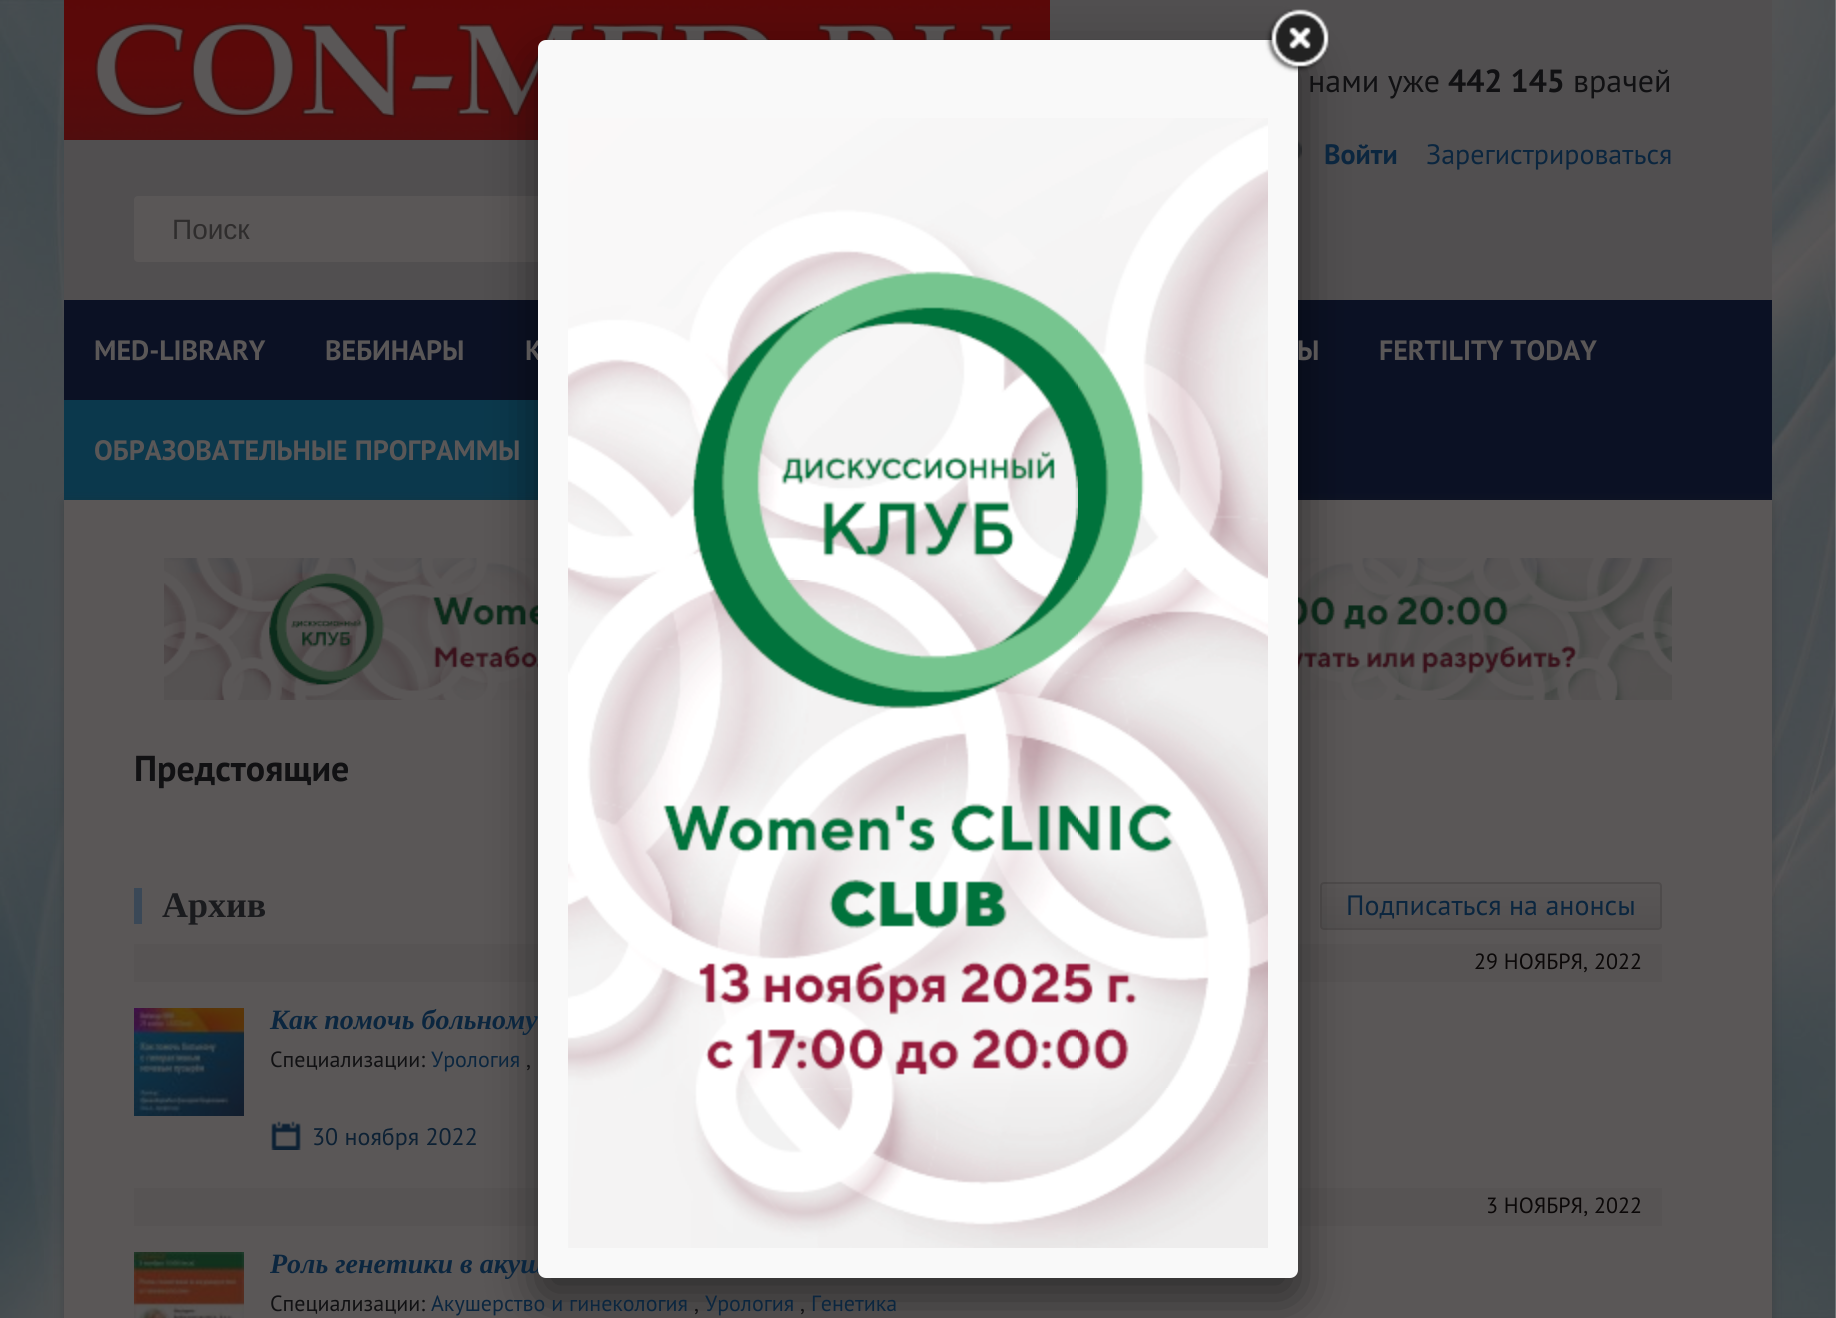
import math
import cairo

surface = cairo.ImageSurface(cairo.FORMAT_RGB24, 1836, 1318)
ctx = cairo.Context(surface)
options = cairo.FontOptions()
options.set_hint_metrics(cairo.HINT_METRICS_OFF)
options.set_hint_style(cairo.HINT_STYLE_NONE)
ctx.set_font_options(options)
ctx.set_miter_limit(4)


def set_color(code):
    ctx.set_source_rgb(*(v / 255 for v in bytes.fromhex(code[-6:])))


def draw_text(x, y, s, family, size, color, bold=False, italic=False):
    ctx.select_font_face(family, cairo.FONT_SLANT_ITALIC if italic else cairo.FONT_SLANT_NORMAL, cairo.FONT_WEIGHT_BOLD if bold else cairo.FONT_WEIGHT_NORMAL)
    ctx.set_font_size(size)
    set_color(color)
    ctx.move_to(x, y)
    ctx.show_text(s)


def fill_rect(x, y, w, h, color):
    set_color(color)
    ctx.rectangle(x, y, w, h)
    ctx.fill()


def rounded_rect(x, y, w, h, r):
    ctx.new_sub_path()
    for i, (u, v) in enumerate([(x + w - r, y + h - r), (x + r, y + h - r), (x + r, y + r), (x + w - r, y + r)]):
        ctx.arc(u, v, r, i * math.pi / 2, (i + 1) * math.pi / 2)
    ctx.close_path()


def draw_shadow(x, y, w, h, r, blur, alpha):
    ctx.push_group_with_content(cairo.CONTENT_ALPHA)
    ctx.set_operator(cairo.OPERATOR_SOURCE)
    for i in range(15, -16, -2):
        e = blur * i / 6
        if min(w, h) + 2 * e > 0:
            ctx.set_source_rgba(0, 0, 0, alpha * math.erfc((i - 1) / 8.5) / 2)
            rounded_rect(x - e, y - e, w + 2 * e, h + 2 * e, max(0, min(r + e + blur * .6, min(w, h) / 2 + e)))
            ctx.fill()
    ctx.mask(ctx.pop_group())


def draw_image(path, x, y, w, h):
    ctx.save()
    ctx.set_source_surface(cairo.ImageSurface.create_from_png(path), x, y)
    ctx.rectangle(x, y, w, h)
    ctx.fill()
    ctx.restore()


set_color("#ffffff")
ctx.paint()
draw_image("assets/img1.png", 0, 0, 1836, 1318)
fill_rect(64, 0, 1708, 300, "#514f50")
draw_image("assets/img4.png", 1298, 140, 4, 21)
draw_image("assets/img5.png", 64, 0, 986, 140)
set_color("#5a5757")
rounded_rect(134, 196, 844, 66, 4)
ctx.fill()
fill_rect(64, 300, 1708, 200, "#0b1124")
fill_rect(64, 400, 474, 100, "#0b384c")
set_color("#2b2a2c")
draw_shadow(64, 502, 1708, 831, 0, 5, 0.31)
fill_rect(64, 500, 1708, 818, "#5a5757")
draw_image("assets/img6.png", 164, 558, 1508, 142)
ctx.save()
rounded_rect(1320, 882, 342, 48, 4)
ctx.clip()
gradient = cairo.LinearGradient(1491, 884, 1491, 928)
gradient.add_color_stop_rgba(0, 0.349, 0.337, 0.337, 1)
gradient.add_color_stop_rgba(1, 0.329, 0.318, 0.318, 1)
ctx.set_source(gradient)
ctx.rectangle(1320, 884, 342, 44)
ctx.fill()
ctx.restore()
rounded_rect(1321, 883, 340, 46, 3)
set_color("#4e4b4b")
ctx.stroke()
fill_rect(134, 944, 1528, 38, "#575454")
fill_rect(134, 1188, 1528, 38, "#575454")
set_color("#000000")
draw_shadow(538, 60, 760, 1238, 8, 25, 0.5)
draw_text(525, 360, "К", "PT Sans", 28, "#5a5757", bold=True)
draw_text(270, 1273, "Роль генетики в акуш", "Liberation Serif", 28, "#0b263f", bold=True, italic=True)
set_color("#f9f9f9")
rounded_rect(538, 40, 760, 1238, 8)
ctx.fill()
draw_image("assets/img2.png", 1265, 9, 65, 64)
draw_image("assets/img3.png", 568, 118, 700, 1130)
draw_text(1308, 92, "нами уже", "PT Sans", 32, "#111113")
draw_text(1448, 92, "442 145", "PT Sans", 32, "#111113", bold=True)
draw_text(1573, 92, "врачей", "PT Sans", 32, "#111113")
draw_text(1324, 164, "Войти", "PT Sans", 28, "#0b263f", bold=True)
draw_text(1426, 164, "Зарегистрироваться", "PT Sans", 28, "#0b263f")
draw_text(172, 239, "Поиск", "Liberation Sans", 28, "#2f2d2d")
draw_text(94, 360, "MED-LIBRARY", "PT Sans", 28, "#5a5757", bold=True)
draw_text(325, 360, "ВЕБИНАРЫ", "PT Sans", 28, "#5a5757", bold=True)
draw_text(1297, 360, "Ы", "PT Sans", 28, "#5a5757", bold=True)
draw_text(1379, 360, "FERTILITY TODAY", "PT Sans", 28, "#5a5757", bold=True)
draw_text(94, 460, "ОБРАЗОВАТЕЛЬНЫЕ ПРОГРАММЫ", "PT Sans", 28, "#5a5757", bold=True)
draw_text(134, 781, "Предстоящие", "PT Sans", 36, "#111113", bold=True)
fill_rect(134, 888, 8, 36, "#3a4857")
draw_text(162, 917, "Архив", "Liberation Serif", 36, "#1a1b1e", bold=True)
draw_text(1346, 915, "Подписаться на анонсы", "PT Sans", 28, "#0b263f")
draw_text(1474, 969, "29 НОЯБРЯ, 2022", "PT Sans", 22, "#0b0808")
draw_image("assets/img7.png", 134, 1008, 110, 108)
draw_text(270, 1029, "Как помочь больному", "Liberation Serif", 28, "#0b263f", bold=True, italic=True)
draw_text(270, 1067, "Специализации:", "PT Sans", 22, "#111113")
draw_text(431, 1067, "Урология", "PT Sans", 22, "#0b263f")
draw_text(526, 1067, ",", "PT Sans", 22, "#111113")
draw_image("assets/img8.png", 271, 1121, 30, 29)
draw_text(312, 1145, "30 ноября 2022", "PT Sans", 24, "#0d2134")
draw_text(1486, 1213, "3 НОЯБРЯ, 2022", "PT Sans", 22, "#0b0808")
draw_image("assets/img9.png", 134, 1252, 110, 66)
draw_text(270, 1311, "Специализации:", "PT Sans", 22, "#111113")
draw_text(431, 1311, "Акушерство и гинекология", "PT Sans", 22, "#0b263f")
draw_text(694, 1311, ",", "PT Sans", 22, "#111113")
draw_text(705, 1311, "Урология", "PT Sans", 22, "#0b263f")
draw_text(800, 1311, ",", "PT Sans", 22, "#111113")
draw_text(811, 1311, "Генетика", "PT Sans", 22, "#0b263f")
surface.write_to_png("output.png")
